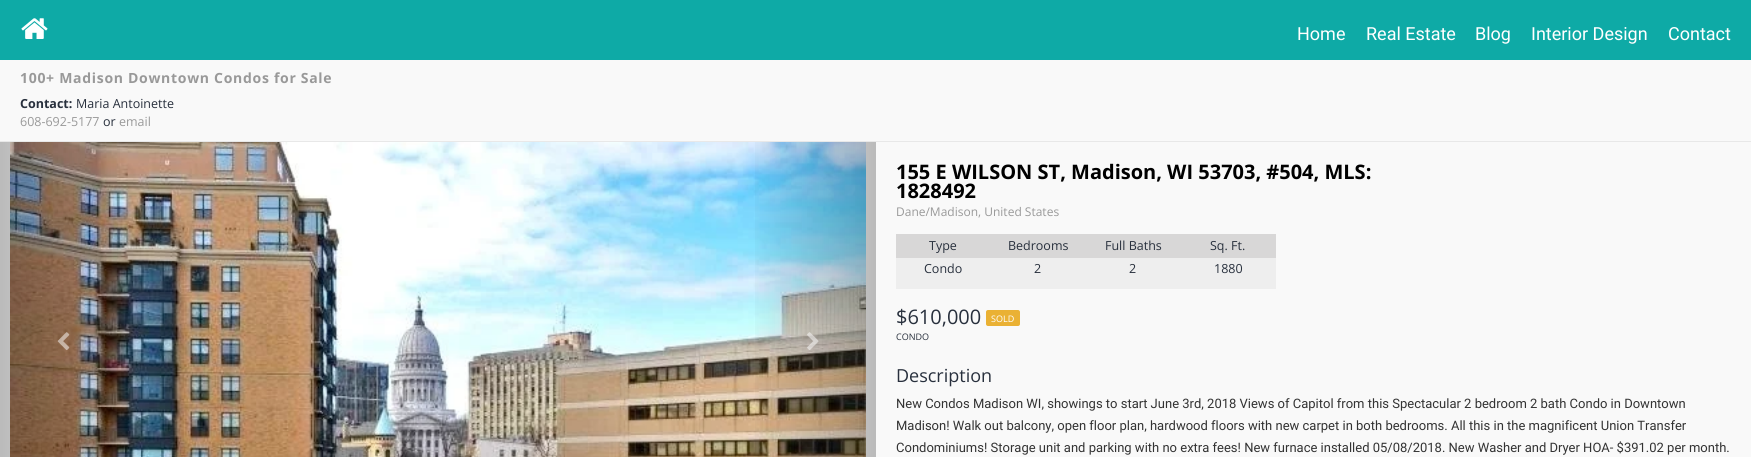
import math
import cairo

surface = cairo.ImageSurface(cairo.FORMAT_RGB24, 1751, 457)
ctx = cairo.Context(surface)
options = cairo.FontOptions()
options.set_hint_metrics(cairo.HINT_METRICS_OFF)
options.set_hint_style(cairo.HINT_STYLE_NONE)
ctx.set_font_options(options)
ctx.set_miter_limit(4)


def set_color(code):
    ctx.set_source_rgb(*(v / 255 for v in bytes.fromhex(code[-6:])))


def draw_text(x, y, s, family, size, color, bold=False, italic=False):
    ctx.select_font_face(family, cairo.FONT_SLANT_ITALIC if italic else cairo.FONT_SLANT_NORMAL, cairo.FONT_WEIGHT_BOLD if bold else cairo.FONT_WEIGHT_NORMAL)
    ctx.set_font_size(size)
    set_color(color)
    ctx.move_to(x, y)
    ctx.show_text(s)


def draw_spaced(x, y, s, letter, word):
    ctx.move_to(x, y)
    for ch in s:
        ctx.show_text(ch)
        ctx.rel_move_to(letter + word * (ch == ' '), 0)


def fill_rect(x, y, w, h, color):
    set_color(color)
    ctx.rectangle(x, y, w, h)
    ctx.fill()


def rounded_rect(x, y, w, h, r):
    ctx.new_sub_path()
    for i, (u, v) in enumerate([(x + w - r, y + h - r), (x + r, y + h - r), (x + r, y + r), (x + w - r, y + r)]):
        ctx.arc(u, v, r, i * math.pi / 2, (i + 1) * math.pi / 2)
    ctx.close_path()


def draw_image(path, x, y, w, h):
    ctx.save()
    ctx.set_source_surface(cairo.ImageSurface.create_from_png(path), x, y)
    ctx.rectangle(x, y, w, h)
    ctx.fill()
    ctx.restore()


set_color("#f9f9f9")
ctx.paint()
fill_rect(0, 0, 1751, 60, "#0eaaa6")
draw_image("assets/img1.png", 21, 18, 27, 21)
draw_text(1297, 40, "Home", "Roboto", 18, "#ffffff")
draw_text(1366, 40, "Real Estate", "Roboto", 18, "#ffffff")
draw_text(1475, 40, "Blog", "Roboto", 18, "#ffffff")
draw_text(1531, 40, "Interior Design", "Roboto", 18, "#ffffff")
draw_text(1668, 40, "Contact", "Roboto", 18, "#ffffff")
ctx.select_font_face("Open Sans", cairo.FONT_SLANT_NORMAL, cairo.FONT_WEIGHT_BOLD)
ctx.set_font_size(14)
set_color("#999999")
draw_spaced(20, 83, "100+ Madison Downtown Condos for Sale", 0.7, 0)
draw_text(20, 108, "Contact:", "Open Sans", 12.5, "#28303d", bold=True)
draw_text(76, 108, "Maria Antoinette", "Open Sans", 12.5, "#28303d")
draw_text(20, 126, "608-692-5177", "Open Sans", 12.5, "#999999")
draw_text(103, 126, "or", "Open Sans", 12.5, "#28303d")
draw_text(119, 126, "email", "Open Sans", 12.5, "#999999")
fill_rect(0, 141, 1751, 1, "#e8e8e8")
draw_image("assets/img3.png", 10, 142, 856, 315)
gradient = cairo.LinearGradient(0, 332, 131, 332)
gradient.add_color_stop_rgba(0, 0, 0, 0, 0.25)
gradient.add_color_stop_rgba(1, 0, 0, 0, 0)
ctx.set_source(gradient)
ctx.rectangle(0, 142, 120, 315)
ctx.fill()
draw_image("assets/img2.png", 57, 332, 13, 19)
gradient = cairo.LinearGradient(744, 332, 876, 332)
gradient.add_color_stop_rgba(0, 0, 0, 0, 0)
gradient.add_color_stop_rgba(1, 0, 0, 0, 0.25)
ctx.set_source(gradient)
ctx.rectangle(755, 142, 121, 315)
ctx.fill()
draw_image("assets/img4.png", 807, 332, 12, 18)
draw_text(896, 179, "155 E WILSON ST, Madison, WI 53703, #504, MLS:", "Open Sans", 20, "#000000", bold=True)
draw_text(896, 198, "1828492", "Open Sans", 20, "#000000", bold=True)
draw_text(896, 216, "Dane/Madison, United States", "Open Sans", 12, "#999999")
fill_rect(896, 258, 380, 31, "#eeeeee")
fill_rect(896, 234, 380, 24, "#d8d7d7")
draw_text(929, 250, "Type", "Open Sans", 12.5, "#28303d")
draw_text(924, 273, "Condo", "Open Sans", 12.5, "#28303d")
draw_text(1008, 250, "Bedrooms", "Open Sans", 12.5, "#28303d")
draw_text(1034, 273, "2", "Open Sans", 12.5, "#28303d")
draw_text(1105, 250, "Full Baths", "Open Sans", 12.5, "#28303d")
draw_text(1129, 273, "2", "Open Sans", 12.5, "#28303d")
draw_text(1210, 250, "Sq. Ft.", "Open Sans", 12.5, "#28303d")
draw_text(1214, 273, "1880", "Open Sans", 12.5, "#28303d")
draw_text(896, 324, "$610,000", "Open Sans", 20, "#28303d")
set_color("#eab134")
rounded_rect(986, 310, 34, 16, 2)
ctx.fill()
draw_text(991, 322, "SOLD", "Open Sans", 9, "#ffffff")
draw_text(896, 340, "CONDO", "Open Sans", 9, "#28303d")
draw_text(896, 382, "Description", "Open Sans", 18, "#28303d")
draw_text(896, 408, "New Condos Madison WI, showings to start June 3rd, 2018 Views of Capitol from this Spectacular 2 bedroom 2 bath Condo in Downtown", "Roboto", 13, "#333333")
draw_text(896, 430, "Madison! Walk out balcony, open floor plan, hardwood floors with new carpet in both bedrooms. All this in the magnificent Union Transfer", "Roboto", 13, "#333333")
draw_text(896, 452, "Condominiums! Storage unit and parking with no extra fees! New furnace installed 05/08/2018. New Washer and Dryer HOA- $391.02 per month.", "Roboto", 13, "#333333")
surface.write_to_png("output.png")
